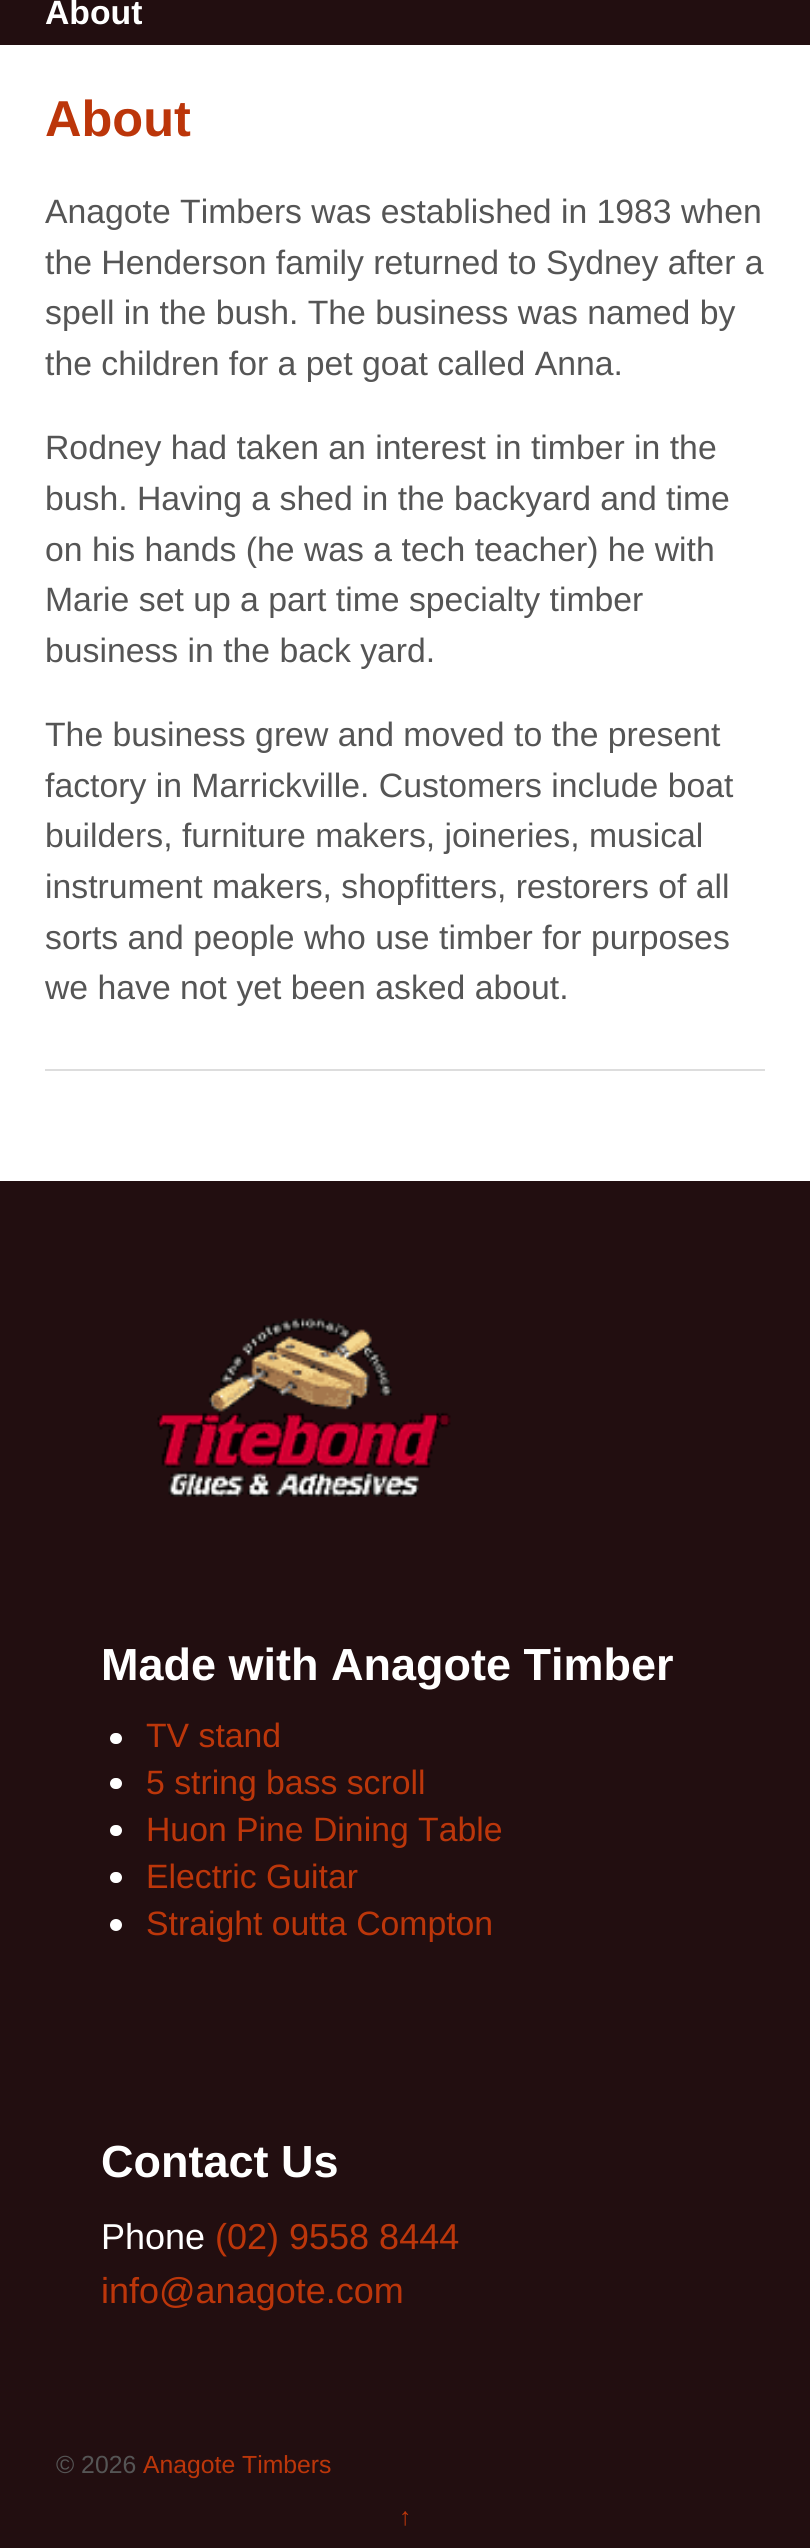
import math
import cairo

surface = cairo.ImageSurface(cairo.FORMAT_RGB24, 810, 2548)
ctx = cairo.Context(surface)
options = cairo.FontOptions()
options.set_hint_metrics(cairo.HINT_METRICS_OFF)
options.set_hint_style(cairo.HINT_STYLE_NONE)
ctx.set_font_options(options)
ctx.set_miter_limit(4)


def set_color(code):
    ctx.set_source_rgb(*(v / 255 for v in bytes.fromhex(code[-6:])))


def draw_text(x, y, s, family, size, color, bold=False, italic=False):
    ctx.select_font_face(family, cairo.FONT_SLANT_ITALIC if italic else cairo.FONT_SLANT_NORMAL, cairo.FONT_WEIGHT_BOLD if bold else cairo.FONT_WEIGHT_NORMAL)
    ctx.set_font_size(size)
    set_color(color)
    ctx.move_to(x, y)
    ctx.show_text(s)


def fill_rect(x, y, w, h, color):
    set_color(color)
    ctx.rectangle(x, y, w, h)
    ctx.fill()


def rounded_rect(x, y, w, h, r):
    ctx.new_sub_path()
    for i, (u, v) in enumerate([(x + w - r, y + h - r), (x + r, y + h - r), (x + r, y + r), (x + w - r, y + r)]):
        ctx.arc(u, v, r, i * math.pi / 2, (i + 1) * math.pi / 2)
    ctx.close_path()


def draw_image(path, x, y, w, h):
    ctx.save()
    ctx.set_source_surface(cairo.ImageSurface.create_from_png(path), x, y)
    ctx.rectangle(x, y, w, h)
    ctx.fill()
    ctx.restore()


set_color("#ffffff")
ctx.paint()
fill_rect(0, 0, 810, 45, "#220e10")
draw_text(45, 24, "About", "Liberation Sans", 33.75, "#ffffff", bold=True)
draw_text(45, 136, "About", "Liberation Sans", 50.5, "#bc360a", bold=True)
draw_text(45, 223, "Anagote Timbers was established in 1983 when", "Liberation Sans", 33.75, "#555555")
draw_text(45, 274, "the Henderson family returned to Sydney after a", "Liberation Sans", 33.75, "#555555")
draw_text(45, 324, "spell in the bush. The business was named by", "Liberation Sans", 33.75, "#555555")
draw_text(45, 375, "the children for a pet goat called Anna.", "Liberation Sans", 33.75, "#555555")
draw_text(45, 459, "Rodney had taken an interest in timber in the", "Liberation Sans", 33.75, "#555555")
draw_text(45, 510, "bush. Having a shed in the backyard and time", "Liberation Sans", 33.75, "#555555")
draw_text(45, 561, "on his hands (he was a tech teacher) he with", "Liberation Sans", 33.75, "#555555")
draw_text(45, 611, "Marie set up a part time specialty timber", "Liberation Sans", 33.75, "#555555")
draw_text(45, 662, "business in the back yard.", "Liberation Sans", 33.75, "#555555")
draw_text(45, 746, "The business grew and moved to the present", "Liberation Sans", 33.75, "#555555")
draw_text(45, 797, "factory in Marrickville. Customers include boat", "Liberation Sans", 33.75, "#555555")
draw_text(45, 847, "builders, furniture makers, joineries, musical", "Liberation Sans", 33.75, "#555555")
draw_text(45, 898, "instrument makers, shopfitters, restorers of all", "Liberation Sans", 33.75, "#555555")
draw_text(45, 949, "sorts and people who use timber for purposes", "Liberation Sans", 33.75, "#555555")
draw_text(45, 999, "we have not yet been asked about.", "Liberation Sans", 33.75, "#555555")
fill_rect(45, 1069, 720, 2, "#dddddd")
fill_rect(0, 1181, 810, 1367, "#220e10")
draw_image("assets/img1.png", 157, 1318, 294, 179)
draw_text(101, 1680, "Made with Anagote Timber", "Liberation Sans", 45, "#ffffff", bold=True)
rounded_rect(110, 1733, 12, 11, 5.5)
ctx.fill()
draw_text(146, 1747, "TV stand", "Liberation Sans", 33.75, "#bc360a")
set_color("#ffffff")
rounded_rect(110, 1778, 12, 11, 5.5)
ctx.fill()
draw_text(146, 1794, "5 string bass scroll", "Liberation Sans", 33.75, "#bc360a")
set_color("#ffffff")
rounded_rect(110, 1825, 12, 11, 5.5)
ctx.fill()
draw_text(146, 1841, "Huon Pine Dining Table", "Liberation Sans", 33.75, "#bc360a")
set_color("#ffffff")
rounded_rect(110, 1872, 12, 11, 5.5)
ctx.fill()
draw_text(146, 1888, "Electric Guitar", "Liberation Sans", 33.75, "#bc360a")
set_color("#ffffff")
ctx.new_path()
ctx.arc(116, 1925, 6, 0, 2 * math.pi)
ctx.fill()
draw_text(146, 1935, "Straight outta Compton", "Liberation Sans", 33.75, "#bc360a")
draw_text(101, 2177, "Contact Us", "Liberation Sans", 45, "#ffffff", bold=True)
draw_text(101, 2249, "Phone", "Liberation Sans", 36, "#ffffff")
draw_text(215, 2249, "(02) 9558 8444", "Liberation Sans", 36, "#bc360a")
draw_text(101, 2303, "info@anagote.com", "Liberation Sans", 36, "#bc360a")
draw_text(56, 2473, "© 2026", "Liberation Sans", 24.75, "#555555")
draw_text(143, 2473, "Anagote Timbers", "Liberation Sans", 24.75, "#bc360a")
draw_text(399, 2525, "↑", "Liberation Sans", 24.75, "#bc360a")
surface.write_to_png("output.png")
